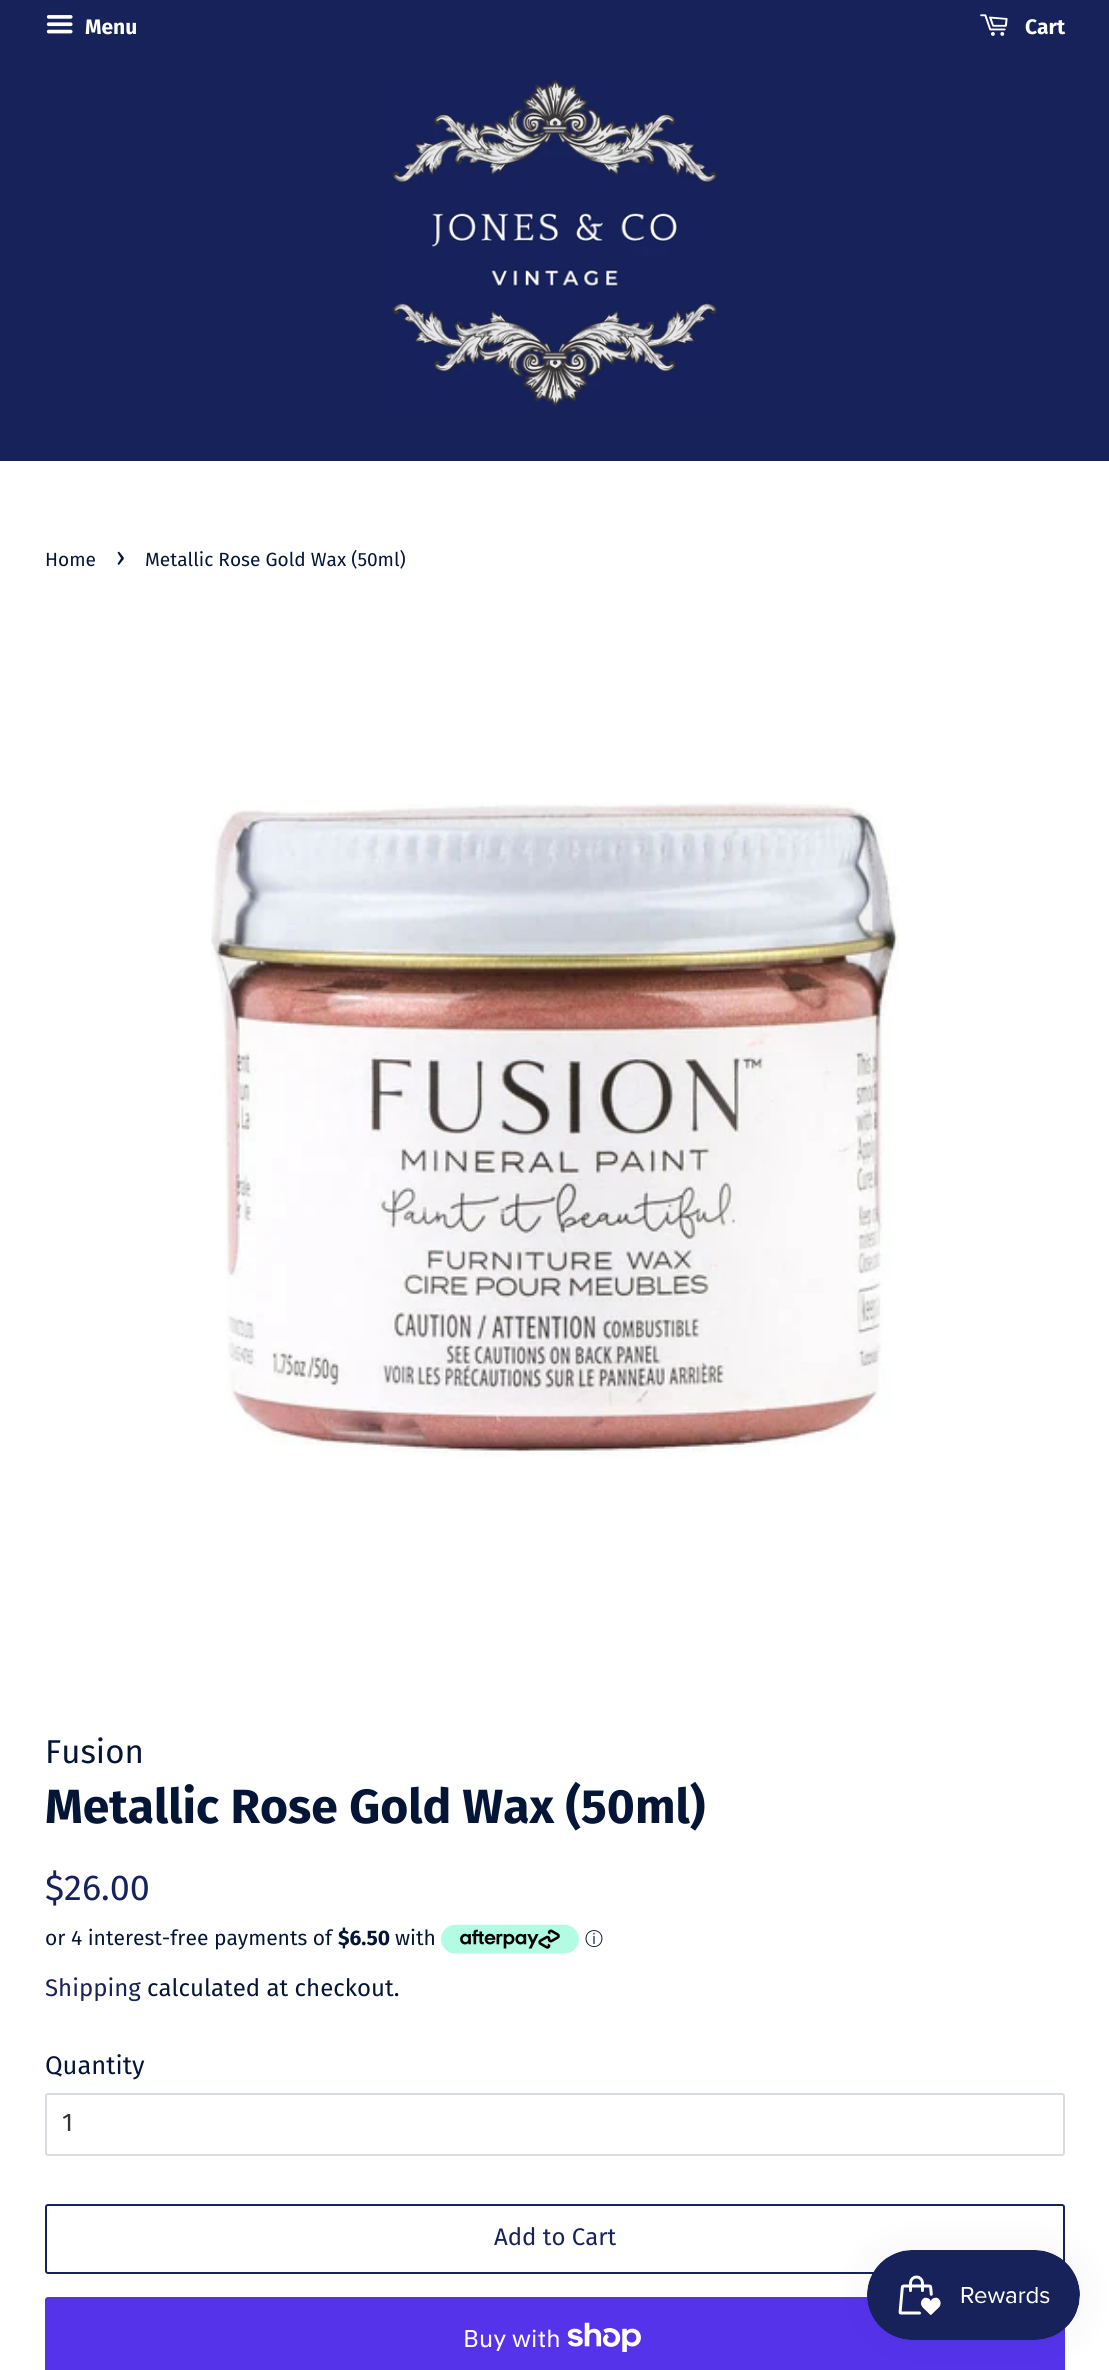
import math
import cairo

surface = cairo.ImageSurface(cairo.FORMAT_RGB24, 1109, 2370)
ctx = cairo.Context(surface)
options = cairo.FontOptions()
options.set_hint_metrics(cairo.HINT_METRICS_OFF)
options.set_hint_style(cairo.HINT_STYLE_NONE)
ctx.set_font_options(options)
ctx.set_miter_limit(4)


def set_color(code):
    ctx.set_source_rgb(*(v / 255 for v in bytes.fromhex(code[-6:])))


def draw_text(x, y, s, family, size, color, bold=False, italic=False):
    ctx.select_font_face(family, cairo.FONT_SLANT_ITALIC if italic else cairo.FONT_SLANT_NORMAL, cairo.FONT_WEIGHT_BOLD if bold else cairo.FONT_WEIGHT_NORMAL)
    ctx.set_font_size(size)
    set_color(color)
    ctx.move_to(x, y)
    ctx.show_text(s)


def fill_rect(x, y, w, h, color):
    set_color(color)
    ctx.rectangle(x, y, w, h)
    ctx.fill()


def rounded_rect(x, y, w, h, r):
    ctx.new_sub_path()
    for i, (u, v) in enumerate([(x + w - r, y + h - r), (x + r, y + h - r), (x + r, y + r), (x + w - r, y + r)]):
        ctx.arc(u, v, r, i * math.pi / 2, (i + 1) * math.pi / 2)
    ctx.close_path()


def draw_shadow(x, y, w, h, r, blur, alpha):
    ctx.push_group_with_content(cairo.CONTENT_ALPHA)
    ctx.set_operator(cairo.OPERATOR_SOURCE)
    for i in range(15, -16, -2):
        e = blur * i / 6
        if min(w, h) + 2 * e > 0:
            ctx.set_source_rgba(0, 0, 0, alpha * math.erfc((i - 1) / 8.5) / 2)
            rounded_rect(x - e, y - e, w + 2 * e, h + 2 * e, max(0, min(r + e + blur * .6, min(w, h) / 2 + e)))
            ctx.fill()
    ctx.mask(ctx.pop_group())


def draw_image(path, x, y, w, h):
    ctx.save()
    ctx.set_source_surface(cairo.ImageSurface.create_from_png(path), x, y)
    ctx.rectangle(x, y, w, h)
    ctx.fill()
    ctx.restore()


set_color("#ffffff")
ctx.paint()
fill_rect(0, 0, 1109, 461, "#17225b")
draw_image("assets/img1.png", 46, 15, 27, 19)
draw_text(85, 34, "Menu", "Fira Sans", 21, "#ffffff", bold=True)
draw_image("assets/img2.png", 980, 14, 28, 22)
draw_text(1025, 34, "Cart", "Fira Sans", 21, "#ffffff", bold=True)
draw_image("assets/img3.png", 391, 79, 327, 328)
draw_text(45, 566, "Home", "Fira Sans", 19.1, "#041535")
draw_text(116, 566, "›", "Fira Sans", 27, "#041535")
draw_text(145, 566, "Metallic Rose Gold Wax (50ml)", "Fira Sans", 19.1, "#041535")
draw_image("assets/img4.png", 211, 802, 688, 655)
draw_text(45, 1763, "Fusion", "Fira Sans", 33, "#041535")
draw_text(45, 1823, "Metallic Rose Gold Wax (50ml)", "Fira Sans", 48, "#041535", bold=True)
draw_text(45, 1900, "$26.00", "Fira Sans", 36, "#17225b")
draw_text(45, 1945, "or 4 interest-free payments of", "Fira Sans", 21, "#041535")
draw_text(338, 1945, "$6.50", "Fira Sans", 21, "#041535", bold=True)
draw_text(395, 1945, "with", "Fira Sans", 21, "#041535")
draw_image("assets/img5.png", 441, 1924, 138, 30)
draw_text(585, 1945, "ⓘ", "WenQuanYi Zen Hei Medium", 18, "#041535")
draw_text(45, 1996, "Shipping", "Fira Sans", 24, "#17225b")
draw_text(147, 1996, "calculated at checkout.", "Fira Sans", 24, "#041535")
draw_text(45, 2074, "Quantity", "Fira Sans", 25.5, "#041535")
rounded_rect(46, 2094, 1018, 61, 2)
set_color("#d9dce1")
ctx.stroke()
draw_text(62, 2131, "1", "Fira Sans", 25.5, "#333333")
rounded_rect(46, 2205, 1018, 68, 2)
set_color("#17225b")
ctx.stroke()
draw_text(494, 2245, "Add to Cart", "Fira Sans", 24, "#17225b")
set_color("#5433eb")
rounded_rect(45, 2297, 1020, 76, 3)
ctx.fill()
draw_text(463, 2347, "Buy with", "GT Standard", 24, "#ffffff")
draw_image("assets/img6.png", 567, 2322, 74, 30)
set_color("#000000")
draw_shadow(867, 2250, 213, 90, 45, 19, 0.05)
draw_image("assets/img7.png", 867, 2250, 213, 90)
surface.write_to_png("output.png")
